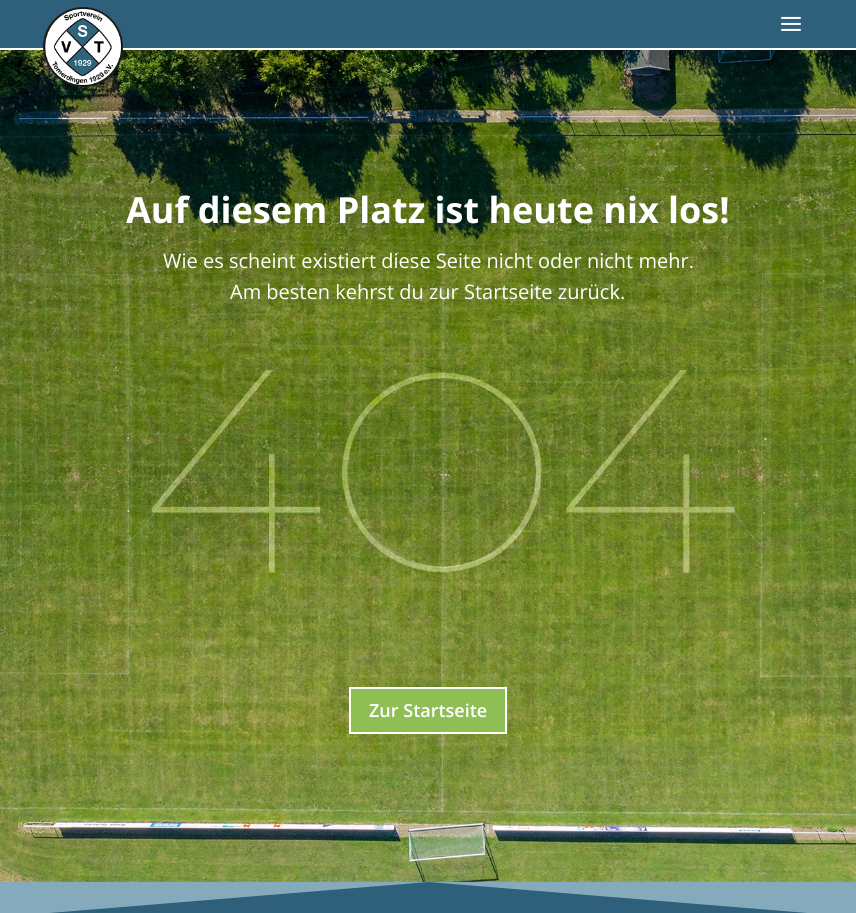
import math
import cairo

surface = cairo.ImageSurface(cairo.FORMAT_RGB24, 856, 913)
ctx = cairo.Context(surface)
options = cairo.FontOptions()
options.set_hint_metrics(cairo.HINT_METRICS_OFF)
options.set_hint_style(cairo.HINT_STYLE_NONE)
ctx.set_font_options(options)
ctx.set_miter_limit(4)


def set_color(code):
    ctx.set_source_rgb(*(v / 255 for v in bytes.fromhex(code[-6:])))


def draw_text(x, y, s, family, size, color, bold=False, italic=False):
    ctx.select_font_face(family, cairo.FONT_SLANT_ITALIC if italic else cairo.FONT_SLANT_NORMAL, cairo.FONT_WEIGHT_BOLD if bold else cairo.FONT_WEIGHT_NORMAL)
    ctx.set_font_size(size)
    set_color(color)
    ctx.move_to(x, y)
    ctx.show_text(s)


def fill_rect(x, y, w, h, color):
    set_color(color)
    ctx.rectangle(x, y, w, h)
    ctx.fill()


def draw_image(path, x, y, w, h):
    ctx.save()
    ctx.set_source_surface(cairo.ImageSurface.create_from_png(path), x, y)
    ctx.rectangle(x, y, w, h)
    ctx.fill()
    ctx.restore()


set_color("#ffffff")
ctx.paint()
fill_rect(0, 0, 856, 48, "#2f607b")
draw_image("assets/img3.png", 0, 50, 856, 832)
draw_image("assets/img1.png", 43, 7, 80, 80)
draw_image("assets/img2.png", 781, 16, 20, 15)
draw_text(126, 223, "Auf diesem Platz ist heute nix los!", "Open Sans", 36, "#ffffff", bold=True)
draw_text(163, 268, "Wie es scheint existiert diese Seite nicht oder nicht mehr.", "Open Sans", 20, "#ffffff")
draw_text(230, 299, "Am besten kehrst du zur Startseite zurück.", "Open Sans", 20, "#ffffff")
set_color("#8ebf55")
ctx.rectangle(350, 688, 156, 45)
ctx.fill_preserve()
set_color("#ffffff")
ctx.stroke()
draw_text(369, 717, "Zur Startseite", "Open Sans SemiBold", 18, "#ffffff")
fill_rect(49, 882, 758, 31, "#2f607b")
set_color("#84aabc")
ctx.new_path()
ctx.move_to(428, 882)
ctx.line_to(0, 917)
ctx.line_to(0, 882)
ctx.line_to(856, 882)
ctx.line_to(856, 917)
ctx.close_path()
ctx.fill()
surface.write_to_png("output.png")
